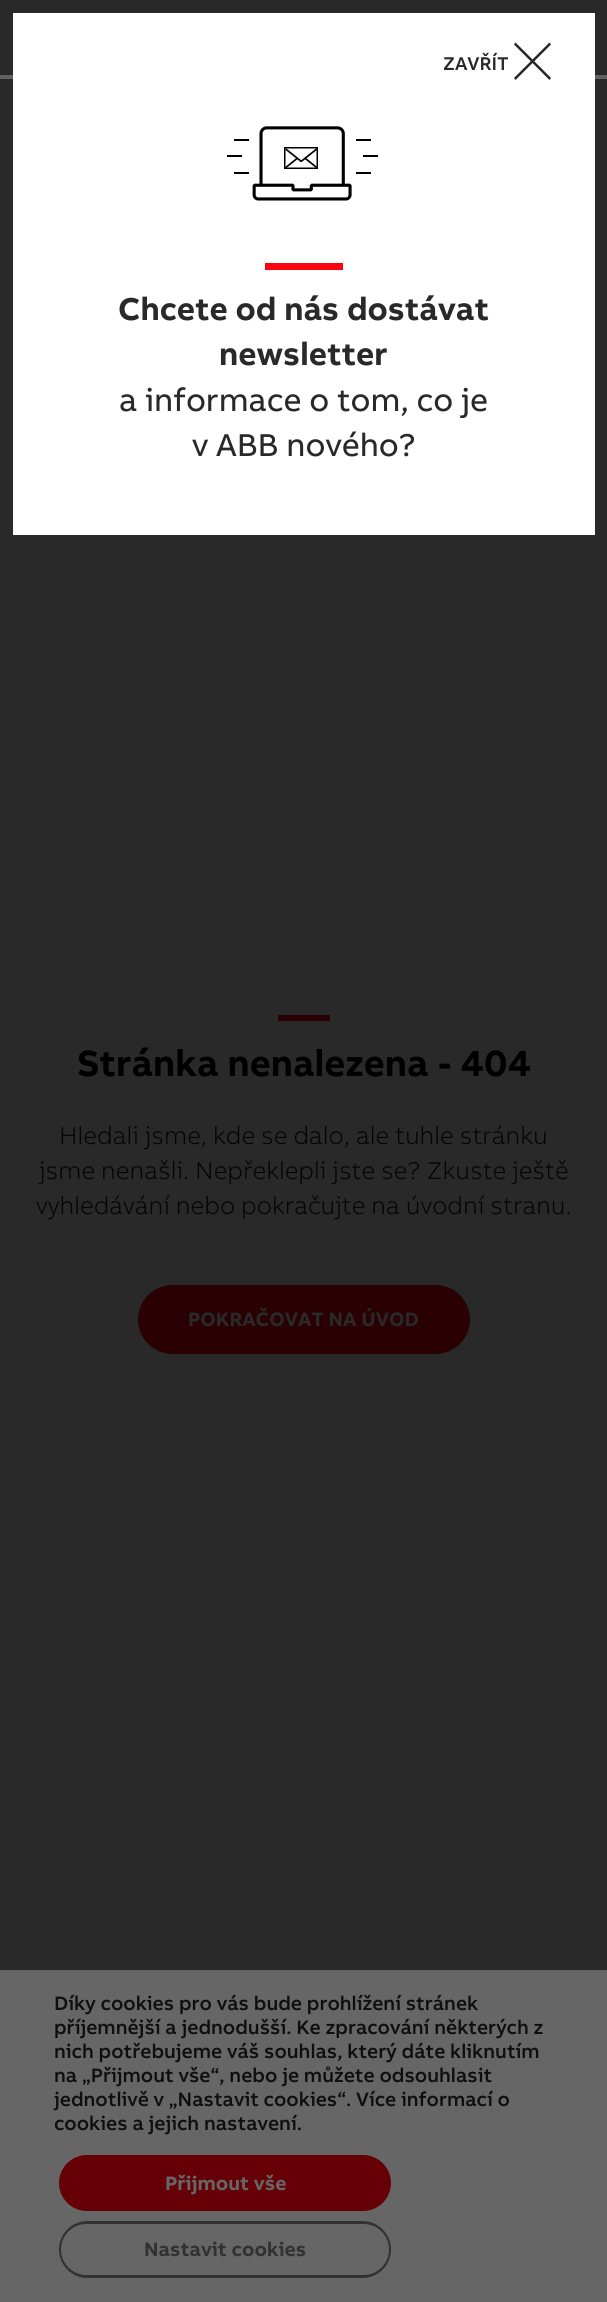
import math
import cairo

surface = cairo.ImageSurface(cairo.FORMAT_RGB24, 607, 2302)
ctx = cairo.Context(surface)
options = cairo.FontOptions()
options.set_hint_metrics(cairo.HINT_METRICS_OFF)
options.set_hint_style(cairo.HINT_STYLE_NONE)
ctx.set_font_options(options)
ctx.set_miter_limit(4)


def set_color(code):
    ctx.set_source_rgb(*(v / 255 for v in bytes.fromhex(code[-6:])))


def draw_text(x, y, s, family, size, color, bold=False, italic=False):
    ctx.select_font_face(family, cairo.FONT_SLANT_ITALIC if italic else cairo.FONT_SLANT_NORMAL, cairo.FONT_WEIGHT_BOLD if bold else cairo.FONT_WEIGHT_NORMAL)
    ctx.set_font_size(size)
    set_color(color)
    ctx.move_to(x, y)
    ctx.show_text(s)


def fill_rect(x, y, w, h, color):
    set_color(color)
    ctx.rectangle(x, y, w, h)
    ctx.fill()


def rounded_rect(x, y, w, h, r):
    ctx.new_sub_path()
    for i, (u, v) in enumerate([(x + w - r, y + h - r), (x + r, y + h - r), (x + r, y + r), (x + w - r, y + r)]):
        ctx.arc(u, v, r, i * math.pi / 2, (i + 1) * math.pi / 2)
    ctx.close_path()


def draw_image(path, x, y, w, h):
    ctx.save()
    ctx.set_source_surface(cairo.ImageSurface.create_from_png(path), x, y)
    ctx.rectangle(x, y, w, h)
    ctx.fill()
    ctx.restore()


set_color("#292929")
ctx.paint()
fill_rect(0, 75, 607, 4, "#616161")
fill_rect(13, 13, 582, 522, "#ffffff")
draw_text(443, 70, "ZAVŘÍT", "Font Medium", 19, "#292929")
set_color("#262626")
ctx.new_path()
ctx.move_to(515.5, 42.5)
ctx.line_to(551, 78)
ctx.line_to(549.5, 80)
ctx.line_to(514, 44.5)
ctx.close_path()
ctx.fill()
ctx.new_path()
ctx.move_to(515.5, 80)
ctx.line_to(514, 78)
ctx.line_to(549.5, 42.5)
ctx.line_to(551, 44.5)
ctx.close_path()
ctx.fill()
draw_image("assets/img1.png", 227, 126, 151, 75)
fill_rect(265, 263, 78, 7, "#ff0012")
draw_text(118, 320, "Chcete od nás dostávat", "Font", 32.5, "#292929", bold=True)
draw_text(219, 365, "newsletter", "Font", 32.5, "#292929", bold=True)
draw_text(119, 411, "a informace o tom, co je", "Font", 32.5, "#292929")
draw_text(192, 456, "v ABB nového?", "Font", 32.5, "#292929")
fill_rect(278, 1015, 52, 6, "#290003")
draw_text(77, 1076, "Stránka nenalezena - 404", "Font", 37.5, "#000000", bold=True)
draw_text(59, 1144, "Hledali jsme, kde se dalo, ale tuhle stránku", "Font Light", 25, "#060606")
draw_text(39, 1179, "jsme nenašli. Nepřeklepli jste se? Zkuste ještě", "Font Light", 25, "#060606")
draw_text(36, 1214, "vyhledávání nebo pokračujte na úvodní stranu.", "Font Light", 25, "#060606")
set_color("#290003")
rounded_rect(138, 1285, 332, 69, 34.5)
ctx.fill()
draw_text(188, 1326, "POKRAČOVAT NA ÚVOD", "Font", 20, "#292929", bold=True)
fill_rect(0, 1971, 607, 331, "#666666")
fill_rect(0, 1970, 607, 1, "#606060")
draw_text(54, 2010, "Díky cookies pro vás bude prohlížení stránek", "Font Medium", 20, "#0f0f0f")
draw_text(54, 2034, "příjemnější a jednodušší. Ke zpracování některých z", "Font Medium", 20, "#0f0f0f")
draw_text(54, 2058, "nich potřebujeme váš souhlas, který dáte kliknutím", "Font Medium", 20, "#0f0f0f")
draw_text(54, 2082, "na „Přijmout vše“, nebo je můžete odsouhlasit", "Font Medium", 20, "#0f0f0f")
draw_text(54, 2106, "jednotlivě v „Nastavit cookies“. Více informací o", "Font Medium", 20, "#0f0f0f")
draw_text(54, 2130, "cookies a jejich nastavení.", "Font Medium", 20, "#0f0f0f")
set_color("#660007")
rounded_rect(59, 2155, 332, 56, 28)
ctx.fill()
draw_text(165, 2190, "Přijmout vše", "Font", 20, "#666666", bold=True)
set_color("#323232")
rounded_rect(59, 2221, 332, 57, 28.5)
ctx.fill()
set_color("#666666")
rounded_rect(61, 2224, 328, 51, 25.5)
ctx.fill()
draw_text(144, 2256, "Nastavit cookies", "Font", 20, "#323232", bold=True)
surface.write_to_png("output.png")
